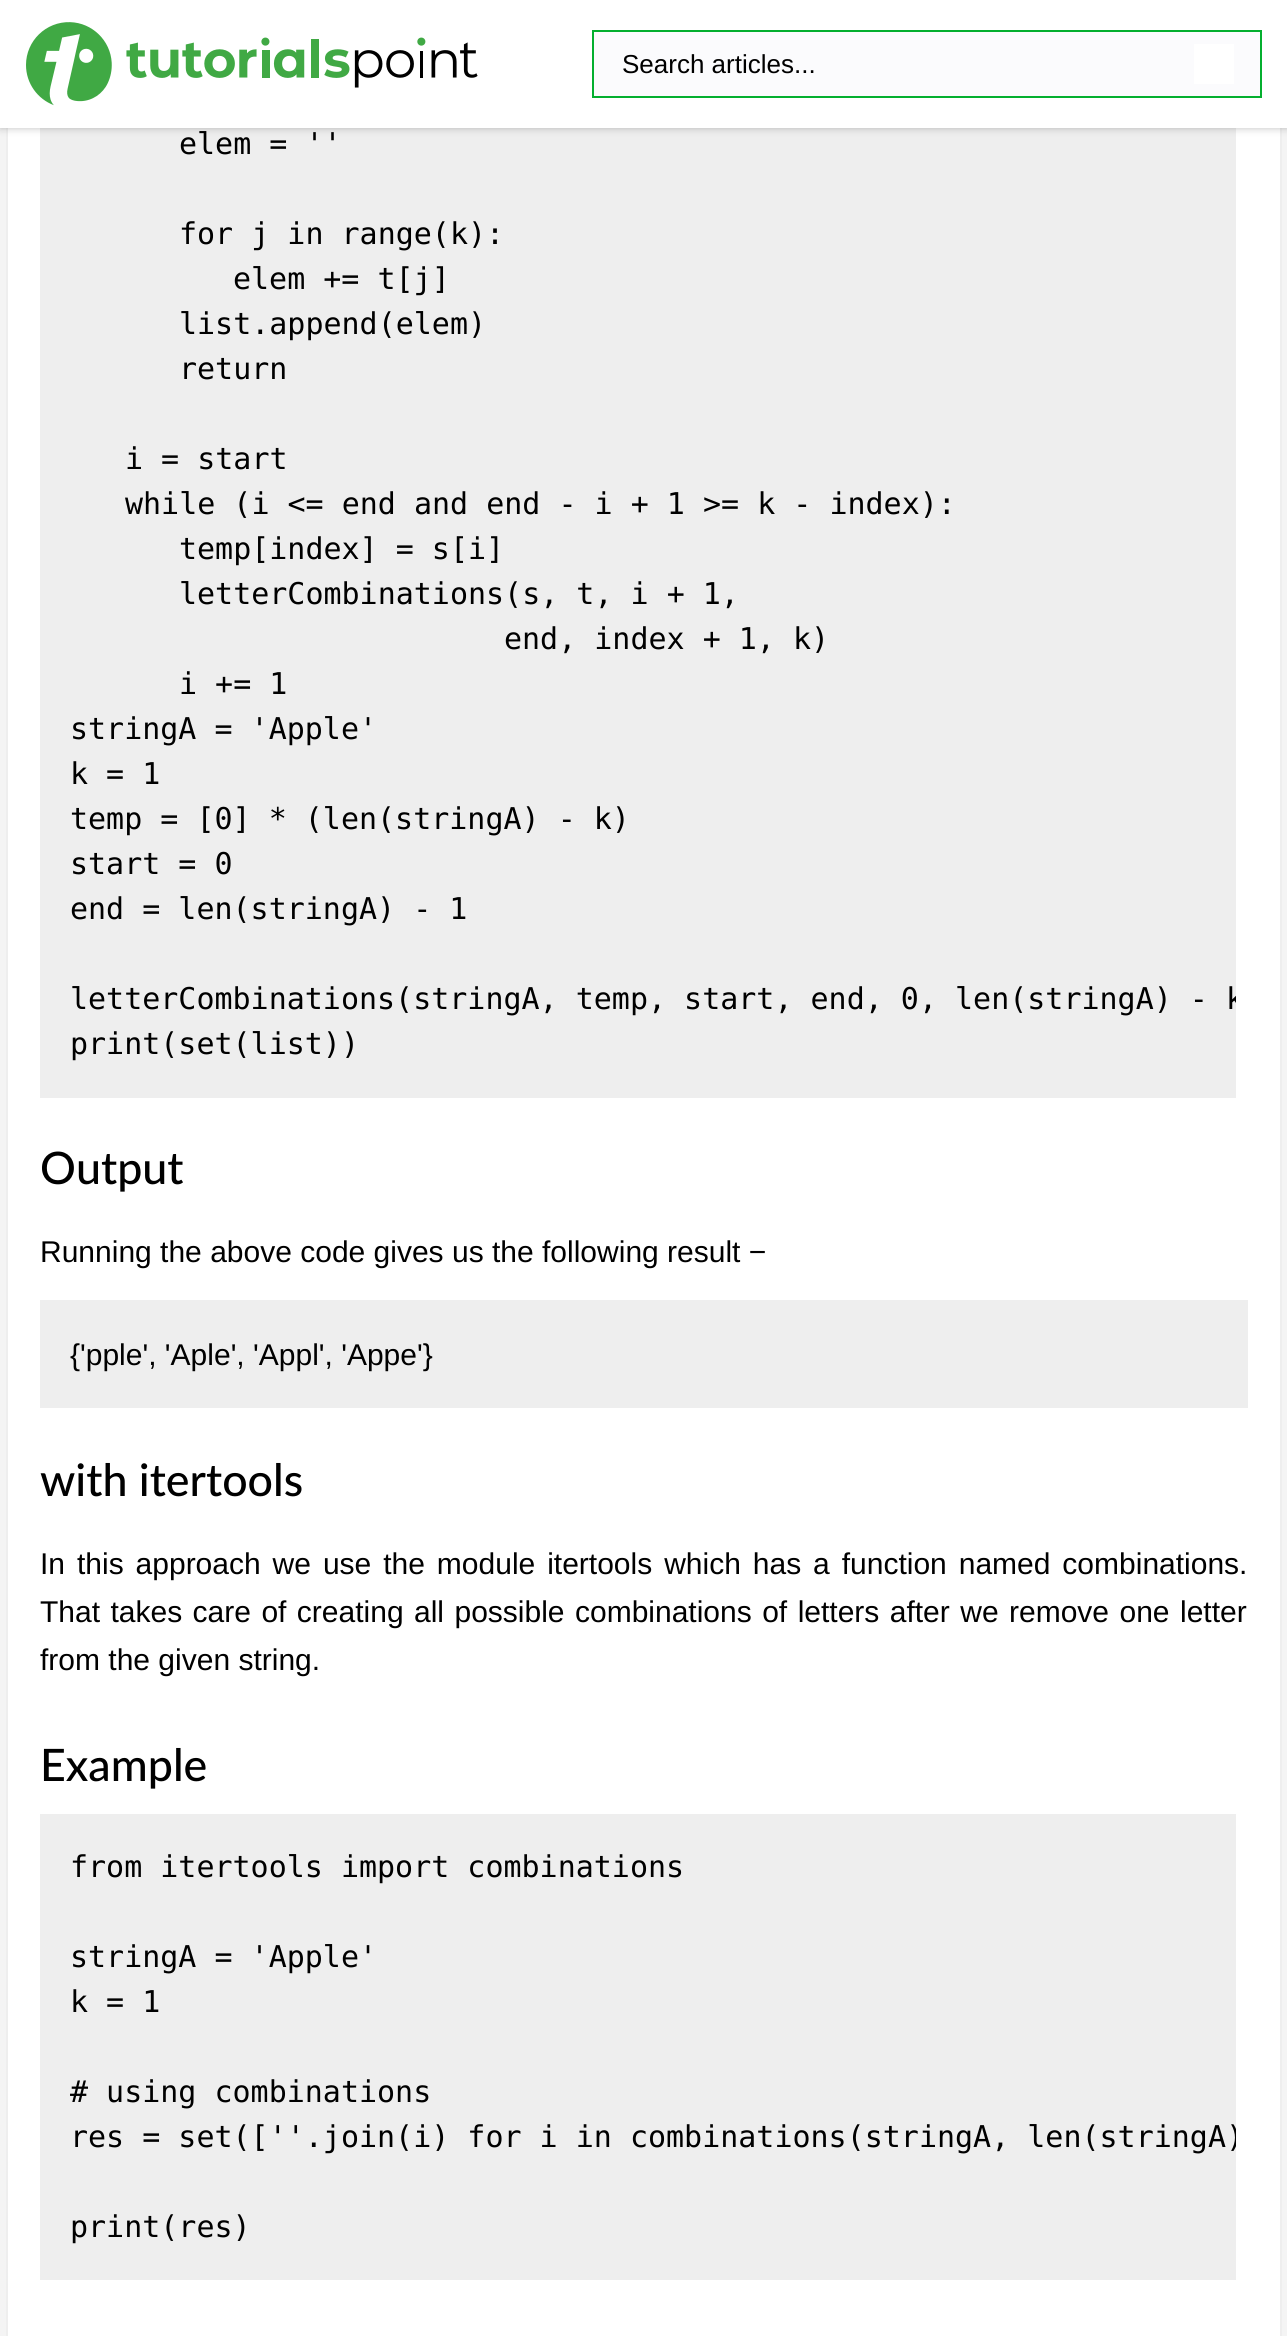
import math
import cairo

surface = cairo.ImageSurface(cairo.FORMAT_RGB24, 1287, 2336)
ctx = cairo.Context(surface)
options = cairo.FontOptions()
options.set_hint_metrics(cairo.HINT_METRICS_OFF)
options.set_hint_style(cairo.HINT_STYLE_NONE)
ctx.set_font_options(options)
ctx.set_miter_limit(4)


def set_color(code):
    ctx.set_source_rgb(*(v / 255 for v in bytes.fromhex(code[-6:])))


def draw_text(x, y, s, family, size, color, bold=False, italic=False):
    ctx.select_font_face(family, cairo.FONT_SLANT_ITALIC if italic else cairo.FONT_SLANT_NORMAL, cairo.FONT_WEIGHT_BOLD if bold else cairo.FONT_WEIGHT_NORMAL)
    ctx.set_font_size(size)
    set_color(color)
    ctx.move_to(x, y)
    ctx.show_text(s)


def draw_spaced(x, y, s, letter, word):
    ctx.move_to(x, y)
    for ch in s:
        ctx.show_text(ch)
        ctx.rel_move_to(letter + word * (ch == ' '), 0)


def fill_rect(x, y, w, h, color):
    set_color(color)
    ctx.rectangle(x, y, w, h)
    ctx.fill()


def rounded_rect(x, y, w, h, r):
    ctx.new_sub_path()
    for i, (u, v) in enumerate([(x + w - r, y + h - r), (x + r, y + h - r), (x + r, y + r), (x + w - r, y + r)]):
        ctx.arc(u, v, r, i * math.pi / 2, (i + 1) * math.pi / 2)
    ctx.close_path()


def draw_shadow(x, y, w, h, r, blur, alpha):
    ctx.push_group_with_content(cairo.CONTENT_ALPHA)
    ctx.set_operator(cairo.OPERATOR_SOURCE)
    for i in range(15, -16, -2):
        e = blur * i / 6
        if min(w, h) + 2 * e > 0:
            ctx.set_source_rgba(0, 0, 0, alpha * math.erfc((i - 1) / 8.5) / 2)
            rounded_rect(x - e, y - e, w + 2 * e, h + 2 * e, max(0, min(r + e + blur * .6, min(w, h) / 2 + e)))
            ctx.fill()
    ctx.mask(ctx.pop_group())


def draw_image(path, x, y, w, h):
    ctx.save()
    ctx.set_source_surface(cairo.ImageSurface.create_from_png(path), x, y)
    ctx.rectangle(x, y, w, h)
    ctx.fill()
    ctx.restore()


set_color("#f4f4f4")
ctx.paint()
fill_rect(8, 128, 1272, 2208, "#ffffff")
ctx.rectangle(7, -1, 1274, 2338)
set_color("#eeeeee")
ctx.stroke()
fill_rect(40, 128, 1196, 970, "#eeeeee")
set_color("#000000")
draw_shadow(0, 0, 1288, 128, 0, 4, 0.25)
fill_rect(0, 0, 1287, 128, "#ffffff")
draw_image("assets/img1.png", 26, 22, 452, 84)
set_color("#fbfbfd")
ctx.rectangle(593, 31, 668, 66)
ctx.fill_preserve()
set_color("#04af2f")
ctx.stroke()
draw_text(622, 73, "Search articles...", "Liberation Sans", 26, "#000000")
fill_rect(1194, 44, 40, 40, "#ffffff")
draw_text(179, 154, "elem = ''", "DejaVu Sans Mono", 30, "#000000")
draw_text(179, 244, "for j in range(k):", "DejaVu Sans Mono", 30, "#000000")
draw_text(233, 289, "elem += t[j]", "DejaVu Sans Mono", 30, "#000000")
draw_text(179, 334, "list.append(elem)", "DejaVu Sans Mono", 30, "#000000")
draw_text(179, 379, "return", "DejaVu Sans Mono", 30, "#000000")
draw_text(125, 469, "i = start", "DejaVu Sans Mono", 30, "#000000")
draw_text(125, 514, "while (i <= end and end - i + 1 >= k - index):", "DejaVu Sans Mono", 30, "#000000")
draw_text(179, 559, "temp[index] = s[i]", "DejaVu Sans Mono", 30, "#000000")
draw_text(179, 604, "letterCombinations(s, t, i + 1,", "DejaVu Sans Mono", 30, "#000000")
draw_text(504, 649, "end, index + 1, k)", "DejaVu Sans Mono", 30, "#000000")
draw_text(179, 694, "i += 1", "DejaVu Sans Mono", 30, "#000000")
draw_text(70, 739, "stringA = 'Apple'", "DejaVu Sans Mono", 30, "#000000")
draw_text(70, 784, "k = 1", "DejaVu Sans Mono", 30, "#000000")
draw_text(70, 829, "temp = [0] * (len(stringA) - k)", "DejaVu Sans Mono", 30, "#000000")
draw_text(70, 874, "start = 0", "DejaVu Sans Mono", 30, "#000000")
draw_text(70, 919, "end = len(stringA) - 1", "DejaVu Sans Mono", 30, "#000000")
ctx.save()
ctx.rectangle(40, 0, 1196, 1098)
ctx.clip()
draw_text(70, 1009, "letterCombinations(stringA, temp, start, end, 0, len(stringA) - k", "DejaVu Sans Mono", 30, "#000000")
ctx.restore()
draw_text(70, 1054, "print(set(list))", "DejaVu Sans Mono", 30, "#000000")
draw_text(40, 1184, "Output", "Lato Medium", 44.75, "#000000")
draw_text(40, 1262, "Running the above code gives us the following result −", "Liberation Sans", 30, "#000000")
fill_rect(40, 1300, 1208, 108, "#eeeeee")
draw_text(70, 1365, "{'pple', 'Aple', 'Appl', 'Appe'}", "Liberation Sans", 30, "#000000")
draw_text(40, 1496, "with itertools", "Lato Medium", 44.75, "#000000")
ctx.select_font_face("Liberation Sans")
ctx.set_font_size(30)
draw_spaced(40, 1574, "In this approach we use the module itertools which has a function named combinations.", 0, 3.6)
draw_spaced(40, 1622, "That takes care of creating all possible combinations of letters after we remove one letter", 0, 2.1)
draw_text(40, 1670, "from the given string.", "Liberation Sans", 30, "#000000")
draw_text(40, 1781, "Example", "Lato Medium", 44.75, "#000000")
fill_rect(40, 1814, 1196, 466, "#eeeeee")
draw_text(70, 1877, "from itertools import combinations", "DejaVu Sans Mono", 30, "#000000")
draw_text(70, 1967, "stringA = 'Apple'", "DejaVu Sans Mono", 30, "#000000")
draw_text(70, 2012, "k = 1", "DejaVu Sans Mono", 30, "#000000")
draw_text(70, 2102, "# using combinations", "DejaVu Sans Mono", 30, "#000000")
ctx.save()
ctx.rectangle(40, 1814, 1196, 466)
ctx.clip()
draw_text(70, 2147, "res = set([''.join(i) for i in combinations(stringA, len(stringA)", "DejaVu Sans Mono", 30, "#000000")
ctx.restore()
draw_text(70, 2237, "print(res)", "DejaVu Sans Mono", 30, "#000000")
surface.write_to_png("output.png")
